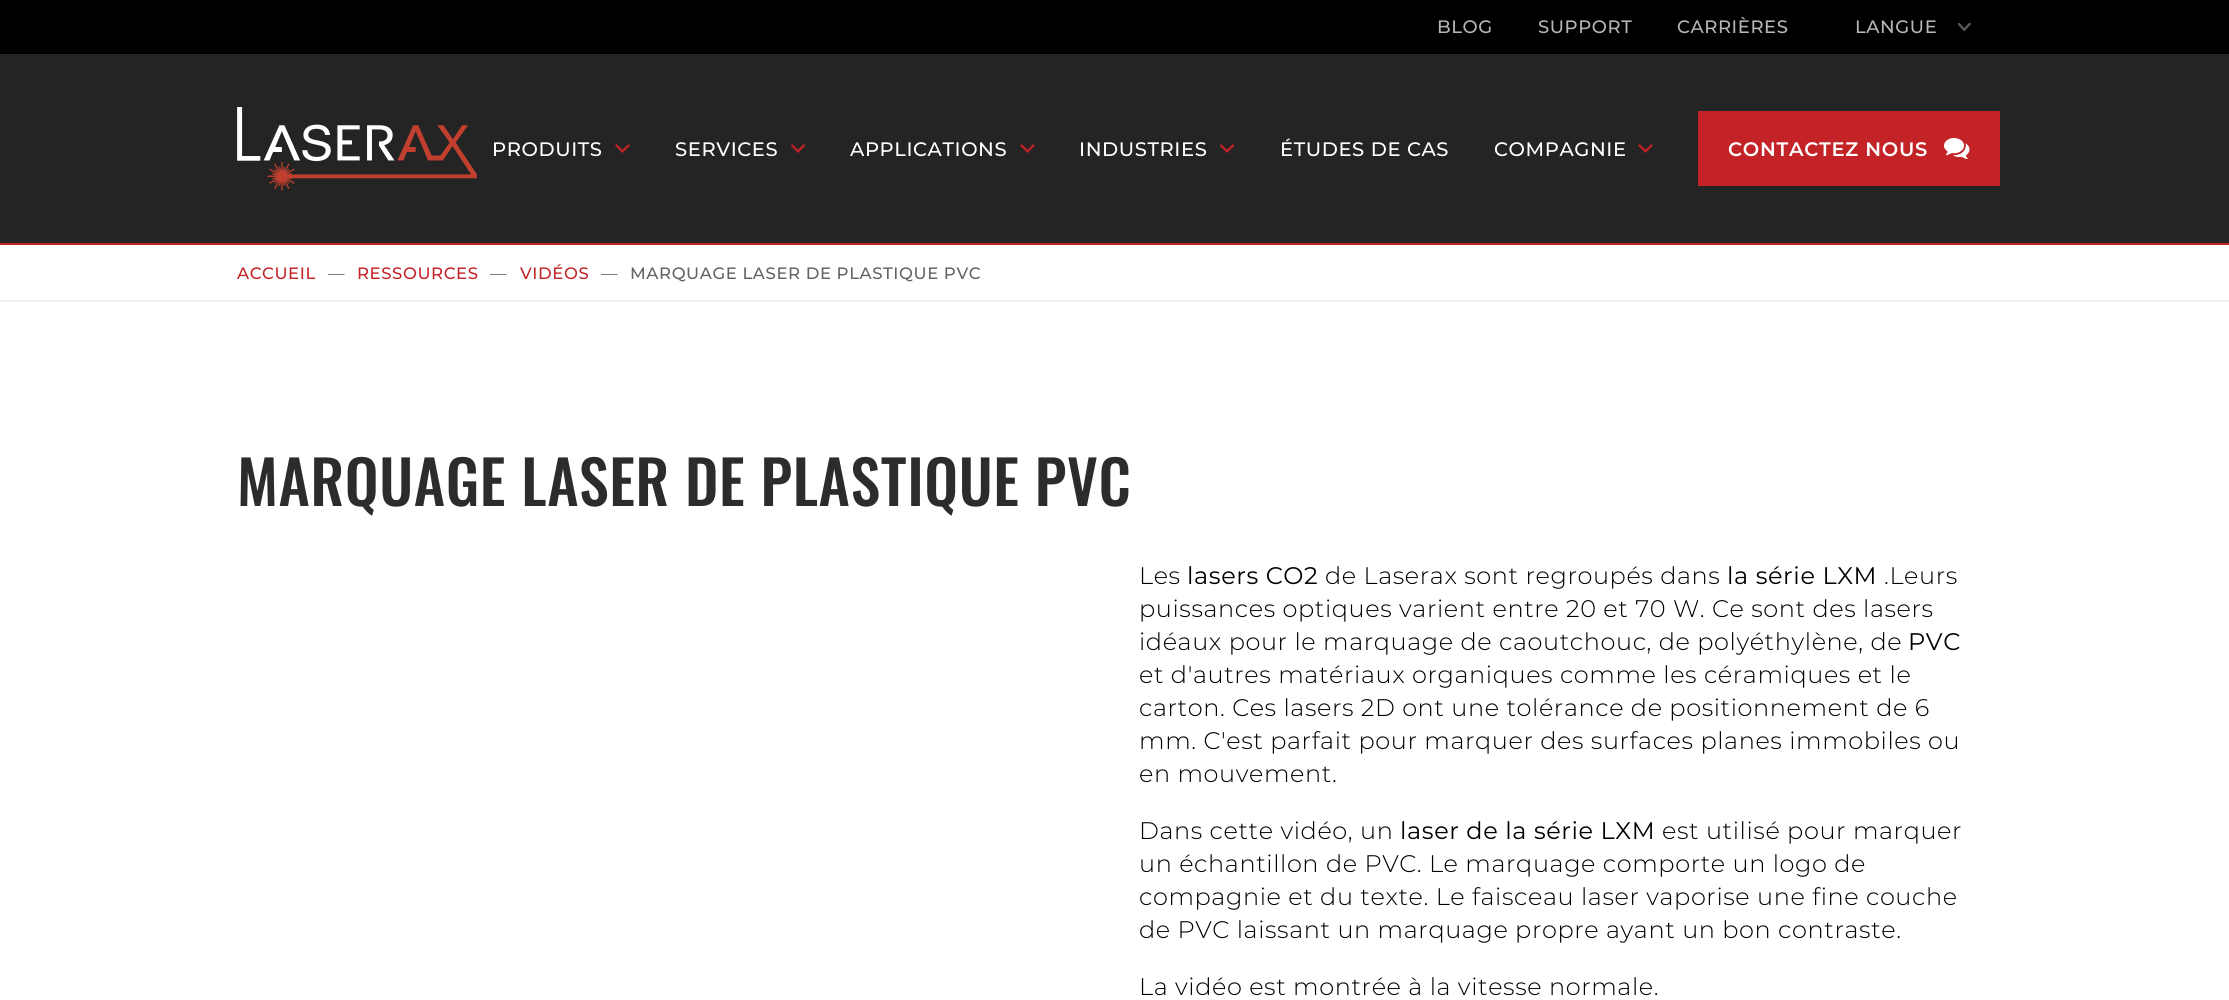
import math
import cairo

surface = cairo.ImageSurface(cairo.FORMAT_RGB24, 2229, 1000)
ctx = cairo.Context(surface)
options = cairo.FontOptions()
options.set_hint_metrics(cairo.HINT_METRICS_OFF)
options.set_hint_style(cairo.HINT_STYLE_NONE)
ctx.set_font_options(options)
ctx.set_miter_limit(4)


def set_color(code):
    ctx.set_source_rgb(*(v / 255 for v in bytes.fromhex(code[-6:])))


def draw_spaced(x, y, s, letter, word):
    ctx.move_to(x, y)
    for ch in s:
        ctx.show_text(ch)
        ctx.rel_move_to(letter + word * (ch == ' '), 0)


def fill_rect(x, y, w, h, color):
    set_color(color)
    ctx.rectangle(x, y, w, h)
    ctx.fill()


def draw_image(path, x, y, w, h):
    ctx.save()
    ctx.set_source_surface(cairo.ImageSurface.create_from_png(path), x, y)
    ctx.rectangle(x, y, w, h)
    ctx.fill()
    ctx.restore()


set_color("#ffffff")
ctx.paint()
fill_rect(0, 54, 2229, 189, "#242424")
fill_rect(0, 0, 2229, 54, "#000000")
ctx.select_font_face("Montserrat Medium")
ctx.set_font_size(18)
set_color("#b7b7b7")
draw_spaced(1437, 33, "BLOG", 0.6, 0)
draw_spaced(1538, 33, "SUPPORT", 0.6, 0)
draw_spaced(1677, 33, "CARRIÈRES", 0.6, 0)
draw_spaced(1855, 33, "LANGUE", 0.6, 0)
draw_image("assets/img1.png", 1958, 23, 13, 9)
fill_rect(0, 243, 2229, 2, "#c32327")
draw_image("assets/img2.png", 237, 107, 240, 84)
ctx.set_font_size(19.5)
set_color("#ffffff")
draw_spaced(492, 156, "PRODUITS", 0.6, 0)
draw_image("assets/img3.png", 615, 144, 15, 9)
draw_spaced(675, 156, "SERVICES", 0.6, 0)
draw_image("assets/img4.png", 791, 144, 15, 9)
draw_spaced(850, 156, "APPLICATIONS", 0.6, 0)
draw_image("assets/img3.png", 1020, 144, 15, 9)
draw_spaced(1079, 156, "INDUSTRIES", 0.6, 0)
draw_image("assets/img4.png", 1220, 144, 15, 9)
draw_spaced(1280, 156, "ÉTUDES DE CAS", 0.6, 0)
draw_spaced(1494, 156, "COMPAGNIE", 0.6, 0)
draw_image("assets/img3.png", 1638, 144, 15, 9)
fill_rect(1698, 111, 302, 75, "#c32327")
ctx.select_font_face("Montserrat SemiBold")
set_color("#ffffff")
draw_spaced(1728, 156, "CONTACTEZ NOUS", 0.75, 0)
draw_image("assets/img5.png", 1944, 138, 26, 21)
ctx.select_font_face("Montserrat Medium")
ctx.set_font_size(16.5)
set_color("#c32327")
draw_spaced(237, 279, "ACCUEIL", 0.6, 0)
ctx.select_font_face("Montserrat")
set_color("#65625f")
draw_spaced(328, 279, "—", 0.6, 0)
ctx.select_font_face("Montserrat Medium")
set_color("#c32327")
draw_spaced(357, 279, "RESSOURCES", 0.6, 0)
ctx.select_font_face("Montserrat")
set_color("#65625f")
draw_spaced(490, 279, "—", 0.6, 0)
ctx.select_font_face("Montserrat Medium")
set_color("#c32327")
draw_spaced(520, 279, "VIDÉOS", 0.6, 0)
ctx.select_font_face("Montserrat")
set_color("#65625f")
draw_spaced(601, 279, "—", 0.6, 0)
ctx.select_font_face("Montserrat Medium")
draw_spaced(630, 279, "MARQUAGE LASER DE PLASTIQUE PVC", 0.6, 0)
fill_rect(0, 300, 2229, 2, "#f0f0f0")
ctx.select_font_face("Oswald Medium")
ctx.set_font_size(60)
set_color("#2c2c2c")
draw_spaced(237, 506, "MARQUAGE LASER DE PLASTIQUE PVC", 0.6, 0)
ctx.select_font_face("Montserrat Light")
ctx.set_font_size(24)
set_color("#000000")
draw_spaced(1139, 584, "Les", 0.6, 0)
ctx.select_font_face("Montserrat")
draw_spaced(1187, 584, "lasers CO2", 0.6, 0)
ctx.select_font_face("Montserrat Light")
draw_spaced(1325, 584, "de Laserax sont regroupés dans", 0.6, 0)
ctx.select_font_face("Montserrat")
draw_spaced(1727, 584, "la série LXM", 0.6, 0)
ctx.select_font_face("Montserrat Light")
draw_spaced(1884, 584, ".Leurs", 0.6, 0)
draw_spaced(1139, 617, "puissances optiques varient entre 20 et 70 W. Ce sont des lasers", 0.6, 0)
draw_spaced(1139, 650, "idéaux pour le marquage de caoutchouc, de polyéthylène, de", 0.6, 0)
ctx.select_font_face("Montserrat")
draw_spaced(1908, 650, "PVC", 0.6, 0)
ctx.select_font_face("Montserrat Light")
draw_spaced(1139, 683, "et d'autres matériaux organiques comme les céramiques et le", 0.6, 0)
draw_spaced(1139, 716, "carton. Ces lasers 2D ont une tolérance de positionnement de 6", 0.6, 0)
draw_spaced(1139, 749, "mm. C'est parfait pour marquer des surfaces planes immobiles ou", 0.6, 0)
draw_spaced(1139, 782, "en mouvement.", 0.6, 0)
draw_spaced(1139, 839, "Dans cette vidéo, un", 0.6, 0)
ctx.select_font_face("Montserrat")
draw_spaced(1400, 839, "laser de la série LXM", 0.6, 0)
ctx.select_font_face("Montserrat Light")
draw_spaced(1662, 839, "est utilisé pour marquer", 0.6, 0)
draw_spaced(1139, 872, "un échantillon de PVC. Le marquage comporte un logo de", 0.6, 0)
draw_spaced(1139, 905, "compagnie et du texte. Le faisceau laser vaporise une fine couche", 0.6, 0)
draw_spaced(1139, 938, "de PVC laissant un marquage propre ayant un bon contraste.", 0.6, 0)
draw_spaced(1139, 995, "La vidéo est montrée à la vitesse normale.", 0.6, 0)
surface.write_to_png("output.png")
